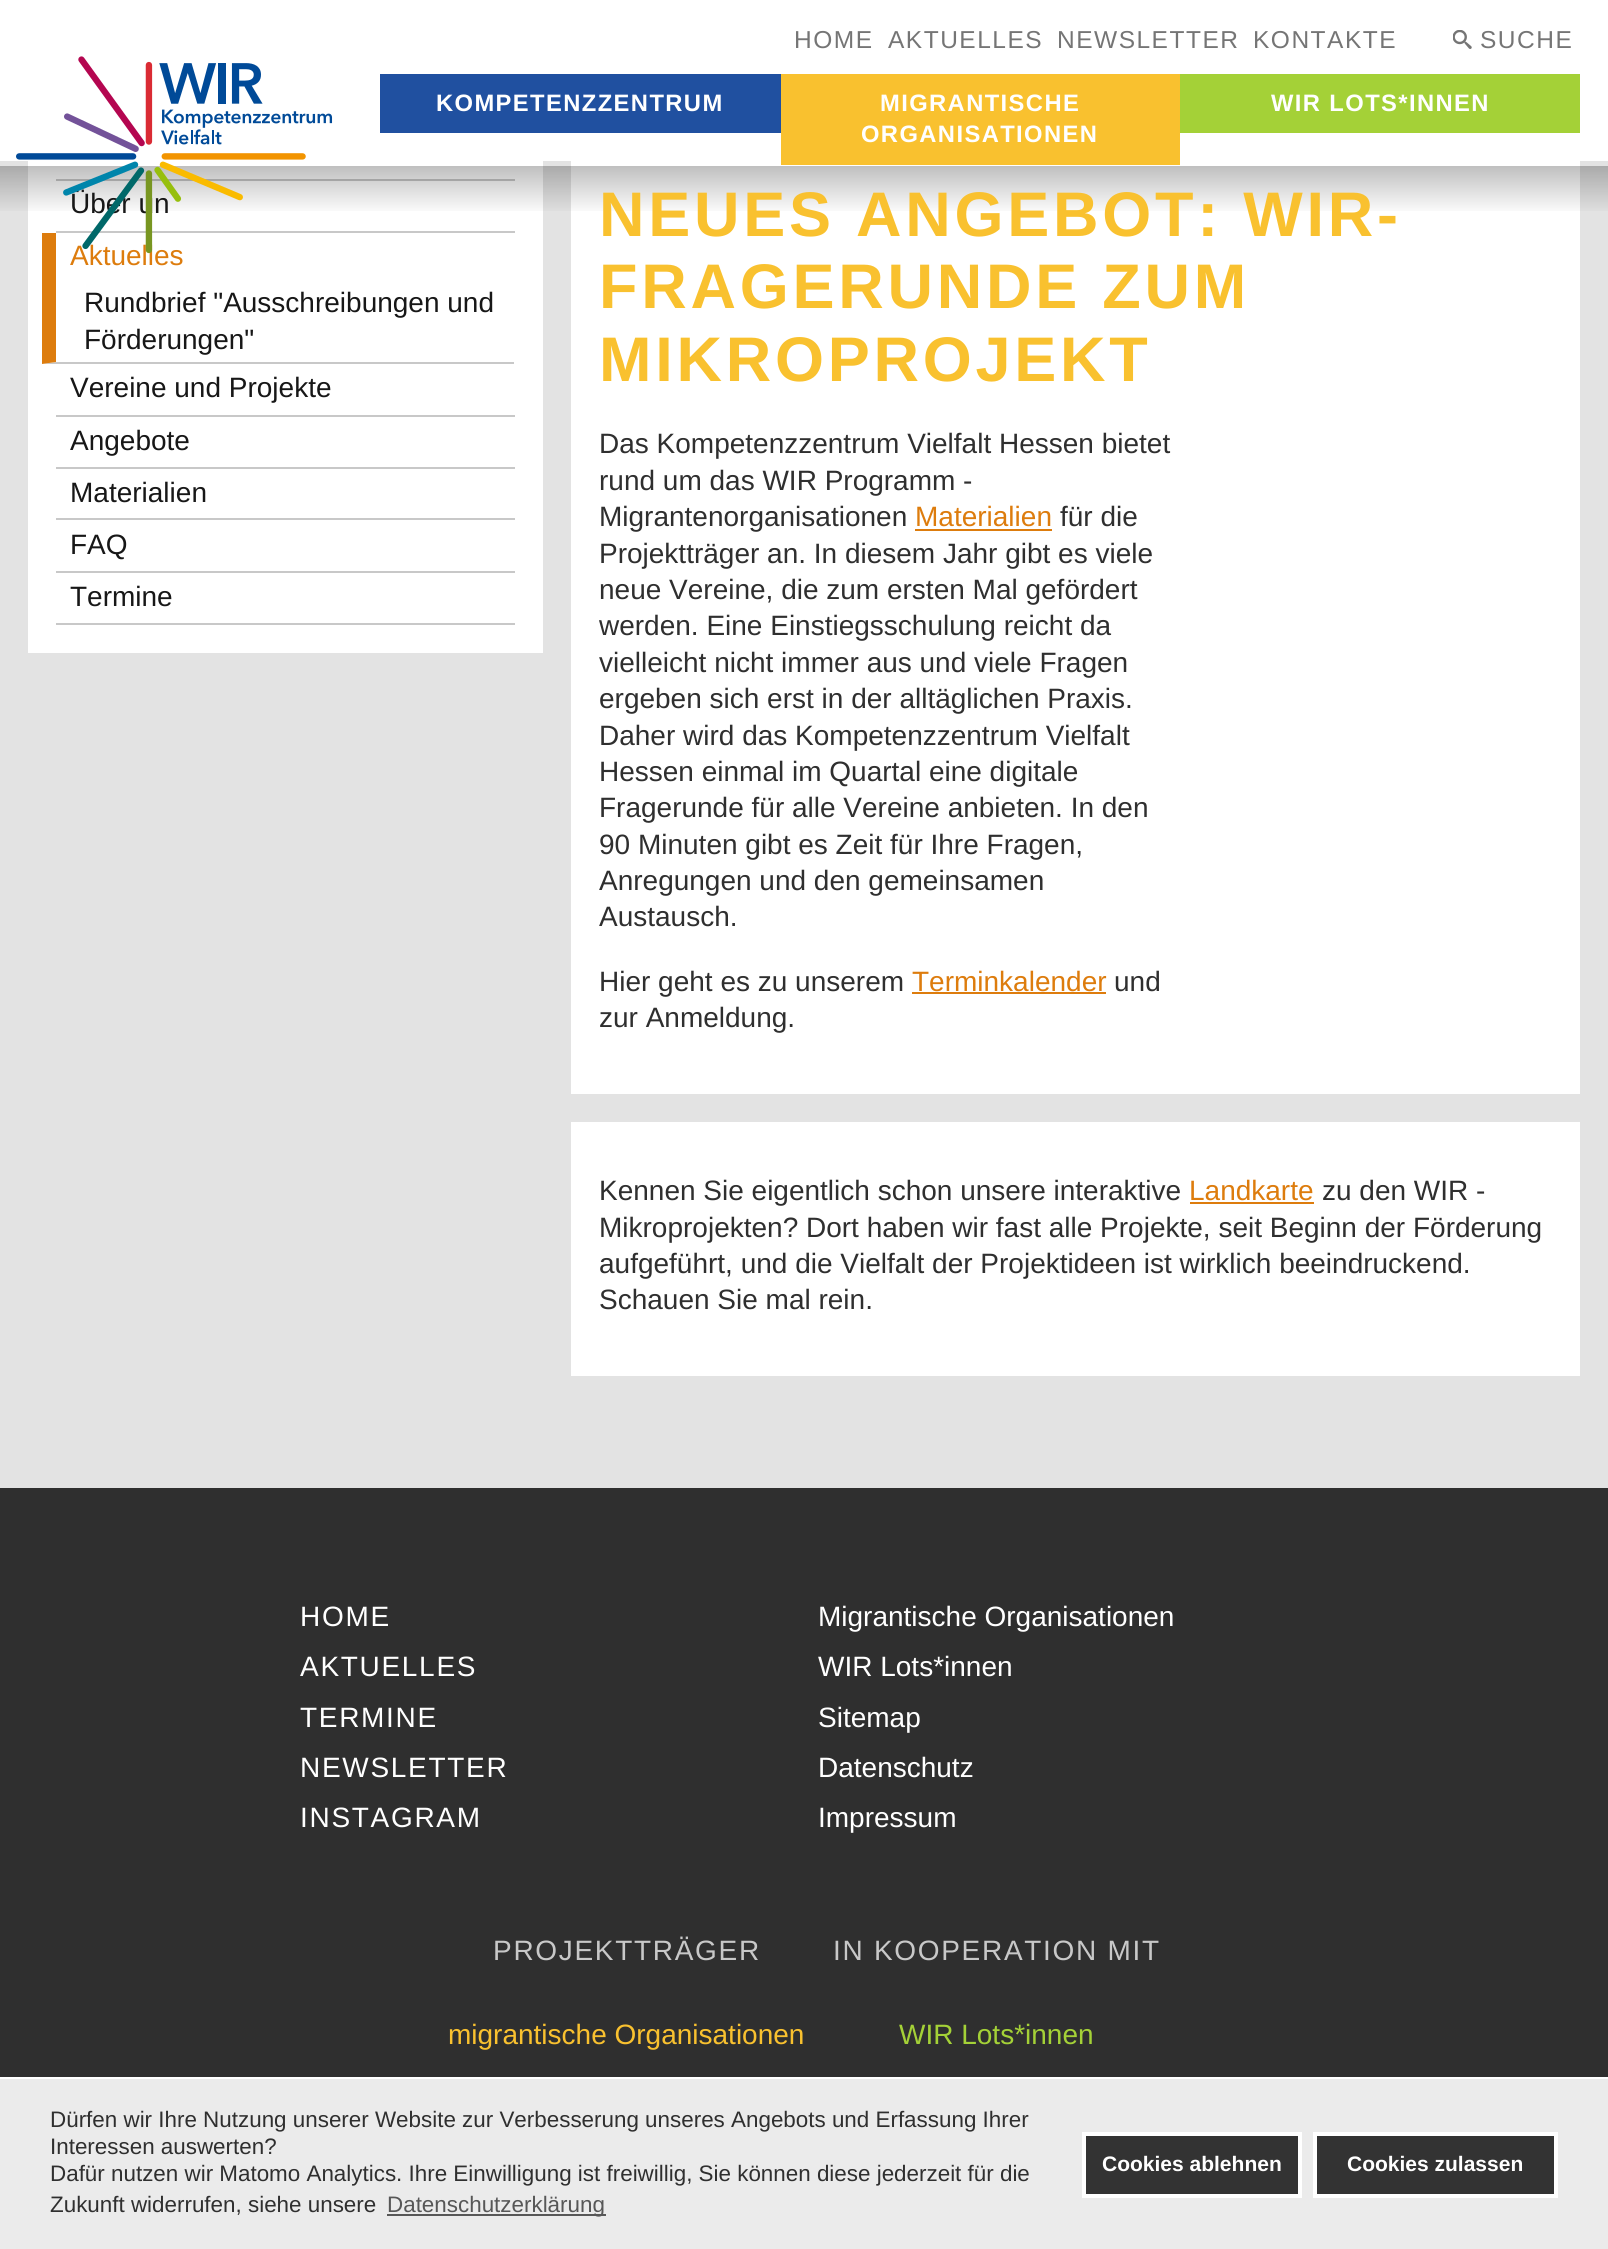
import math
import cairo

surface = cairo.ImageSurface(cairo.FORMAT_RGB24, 1608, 2249)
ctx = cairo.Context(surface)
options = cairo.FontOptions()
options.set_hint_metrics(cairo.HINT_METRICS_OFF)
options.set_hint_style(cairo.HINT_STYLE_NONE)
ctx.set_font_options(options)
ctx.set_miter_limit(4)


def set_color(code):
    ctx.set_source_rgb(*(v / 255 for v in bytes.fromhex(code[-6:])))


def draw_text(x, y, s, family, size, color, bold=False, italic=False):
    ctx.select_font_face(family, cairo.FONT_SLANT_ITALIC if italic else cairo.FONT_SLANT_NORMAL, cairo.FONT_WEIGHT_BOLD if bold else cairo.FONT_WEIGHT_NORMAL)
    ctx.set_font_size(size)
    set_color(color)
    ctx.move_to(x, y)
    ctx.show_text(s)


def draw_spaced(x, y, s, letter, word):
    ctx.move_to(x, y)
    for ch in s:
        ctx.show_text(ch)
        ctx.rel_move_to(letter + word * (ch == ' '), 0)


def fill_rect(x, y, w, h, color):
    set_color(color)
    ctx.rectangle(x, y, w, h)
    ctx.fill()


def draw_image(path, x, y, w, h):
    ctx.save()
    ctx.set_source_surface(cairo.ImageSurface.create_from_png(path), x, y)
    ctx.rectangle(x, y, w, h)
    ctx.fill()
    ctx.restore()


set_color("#e3e3e3")
ctx.paint()
fill_rect(0, 0, 1608, 161, "#ffffff")
ctx.select_font_face("Liberation Sans")
ctx.set_font_size(24.5)
set_color("#757575")
draw_spaced(794, 48, "HOME", 1.5, 0)
draw_spaced(888, 48, "AKTUELLES", 1.5, 0)
draw_spaced(1057, 48, "NEWSLETTER", 1.5, 0)
draw_spaced(1253, 48, "KONTAKTE", 1.5, 0)
draw_image("assets/img1.png", 1453, 30, 19, 19)
draw_spaced(1480, 48, "SUCHE", 1.5, 0)
fill_rect(28, 161, 515, 492, "#ffffff")
fill_rect(56, 179, 459, 2, "#c8c8c8")
fill_rect(571, 161, 1009, 933, "#ffffff")
gradient = cairo.LinearGradient(804, 166, 804, 215)
gradient.add_color_stop_rgba(0, 0, 0, 0, 0.25)
gradient.add_color_stop_rgba(1, 0, 0, 0, 0)
ctx.set_source(gradient)
ctx.rectangle(0, 166, 1608, 45)
ctx.fill()
fill_rect(56, 231, 459, 2, "#c8c8c8")
draw_text(70, 213, "Über un", "Liberation Sans", 28, "#171717")
set_color("#c8c8c8")
ctx.new_path()
ctx.move_to(514, 364)
ctx.line_to(42, 364)
ctx.line_to(56, 362)
ctx.line_to(514, 362)
ctx.close_path()
ctx.fill()
set_color("#dd7c0d")
ctx.new_path()
ctx.move_to(42, 364)
ctx.line_to(42, 233)
ctx.line_to(56, 233)
ctx.line_to(56, 362)
ctx.close_path()
ctx.fill()
draw_text(70, 265, "Aktuelles", "Liberation Sans", 28, "#dd7c0d")
draw_image("assets/img2.png", 16, 56, 317, 198)
fill_rect(380, 74, 401, 59, "#2050a0")
ctx.select_font_face("Liberation Sans", cairo.FONT_SLANT_NORMAL, cairo.FONT_WEIGHT_BOLD)
ctx.set_font_size(23.75)
set_color("#ffffff")
draw_spaced(436, 111, "KOMPETENZZENTRUM", 1.4, 0)
fill_rect(781, 74, 399, 91, "#f9c12f")
set_color("#ffffff")
draw_spaced(880, 111, "MIGRANTISCHE", 1.4, 0)
draw_spaced(861, 142, "ORGANISATIONEN", 1.4, 0)
fill_rect(1180, 74, 400, 59, "#a4d137")
set_color("#ffffff")
draw_spaced(1271, 111, "WIR LOTS*INNEN", 1.4, 0)
draw_text(84, 312, "Rundbrief \"Ausschreibungen und", "Liberation Sans", 28, "#171717")
draw_text(84, 349, "Förderungen\"", "Liberation Sans", 28, "#171717")
fill_rect(56, 415, 459, 2, "#c8c8c8")
draw_text(70, 397, "Vereine und Projekte", "Liberation Sans", 28, "#171717")
fill_rect(56, 467, 459, 2, "#c8c8c8")
draw_text(70, 450, "Angebote", "Liberation Sans", 28, "#171717")
fill_rect(56, 518, 459, 2, "#c8c8c8")
draw_text(70, 502, "Materialien", "Liberation Sans", 28, "#171717")
fill_rect(56, 571, 459, 2, "#c8c8c8")
draw_text(70, 554, "FAQ", "Liberation Sans", 28, "#171717")
fill_rect(56, 623, 459, 2, "#c8c8c8")
draw_text(70, 606, "Termine", "Liberation Sans", 28, "#171717")
ctx.select_font_face("Liberation Sans", cairo.FONT_SLANT_NORMAL, cairo.FONT_WEIGHT_BOLD)
ctx.set_font_size(63)
set_color("#f9c12f")
draw_spaced(599, 236, "NEUES ANGEBOT: WIR-", 3.75, 0)
draw_spaced(599, 308, "FRAGERUNDE ZUM", 3.75, 0)
draw_spaced(599, 381, "MIKROPROJEKT", 3.75, 0)
draw_text(599, 453, "Das Kompetenzzentrum Vielfalt Hessen bietet", "Liberation Sans", 28, "#2f2f2f")
draw_text(599, 490, "rund um das WIR Programm -", "Liberation Sans", 28, "#2f2f2f")
draw_text(599, 526, "Migrantenorganisationen", "Liberation Sans", 28, "#2f2f2f")
draw_text(915, 526, "Materialien", "Liberation Sans", 28, "#dd7c0d")
fill_rect(915, 529, 137, 2, "#dd7c0d")
draw_text(1060, 526, "für die", "Liberation Sans", 28, "#2f2f2f")
draw_text(599, 563, "Projektträger an. In diesem Jahr gibt es viele", "Liberation Sans", 28, "#2f2f2f")
draw_text(599, 599, "neue Vereine, die zum ersten Mal gefördert", "Liberation Sans", 28, "#2f2f2f")
draw_text(599, 635, "werden. Eine Einstiegsschulung reicht da", "Liberation Sans", 28, "#2f2f2f")
draw_text(599, 672, "vielleicht nicht immer aus und viele Fragen", "Liberation Sans", 28, "#2f2f2f")
draw_text(599, 708, "ergeben sich erst in der alltäglichen Praxis.", "Liberation Sans", 28, "#2f2f2f")
draw_text(599, 745, "Daher wird das Kompetenzzentrum Vielfalt", "Liberation Sans", 28, "#2f2f2f")
draw_text(599, 781, "Hessen einmal im Quartal eine digitale", "Liberation Sans", 28, "#2f2f2f")
draw_text(599, 817, "Fragerunde für alle Vereine anbieten. In den", "Liberation Sans", 28, "#2f2f2f")
draw_text(599, 854, "90 Minuten gibt es Zeit für Ihre Fragen,", "Liberation Sans", 28, "#2f2f2f")
draw_text(599, 890, "Anregungen und den gemeinsamen", "Liberation Sans", 28, "#2f2f2f")
draw_text(599, 926, "Austausch.", "Liberation Sans", 28, "#2f2f2f")
draw_text(599, 991, "Hier geht es zu unserem", "Liberation Sans", 28, "#2f2f2f")
draw_text(912, 991, "Terminkalender", "Liberation Sans", 28, "#dd7c0d")
fill_rect(912, 992, 194, 2, "#dd7c0d")
draw_text(1114, 991, "und", "Liberation Sans", 28, "#2f2f2f")
draw_text(599, 1027, "zur Anmeldung.", "Liberation Sans", 28, "#2f2f2f")
fill_rect(571, 1122, 1009, 254, "#ffffff")
draw_text(599, 1200, "Kennen Sie eigentlich schon unsere interaktive", "Liberation Sans", 28, "#2f2f2f")
draw_text(1189, 1200, "Landkarte", "Liberation Sans", 28, "#dd7c0d")
fill_rect(1190, 1202, 124, 2, "#dd7c0d")
draw_text(1322, 1200, "zu den WIR -", "Liberation Sans", 28, "#2f2f2f")
draw_text(599, 1237, "Mikroprojekten? Dort haben wir fast alle Projekte, seit Beginn der Förderung", "Liberation Sans", 28, "#2f2f2f")
draw_text(599, 1273, "aufgeführt, und die Vielfalt der Projektideen ist wirklich beeindruckend.", "Liberation Sans", 28, "#2f2f2f")
draw_text(599, 1309, "Schauen Sie mal rein.", "Liberation Sans", 28, "#2f2f2f")
fill_rect(0, 1488, 1608, 589, "#2f2f2f")
set_color("#ffffff")
draw_spaced(300, 1626, "HOME", 1.7, 0)
draw_spaced(300, 1676, "AKTUELLES", 1.7, 0)
draw_spaced(300, 1727, "TERMINE", 1.7, 0)
draw_spaced(300, 1777, "NEWSLETTER", 1.7, 0)
draw_spaced(300, 1827, "INSTAGRAM", 1.7, 0)
draw_text(818, 1626, "Migrantische Organisationen", "Liberation Sans", 28, "#ffffff")
draw_text(818, 1676, "WIR Lots*innen", "Liberation Sans", 28, "#ffffff")
draw_text(818, 1727, "Sitemap", "Liberation Sans", 28, "#ffffff")
draw_text(818, 1777, "Datenschutz", "Liberation Sans", 28, "#ffffff")
draw_text(818, 1827, "Impressum", "Liberation Sans", 28, "#ffffff")
set_color("#c8c8c8")
draw_spaced(493, 1960, "PROJEKTTRÄGER", 1.7, 0)
draw_text(448, 2044, "migrantische Organisationen", "Liberation Sans", 28, "#f9c12f")
set_color("#c8c8c8")
draw_spaced(833, 1960, "IN KOOPERATION MIT", 1.7, 0)
draw_text(899, 2044, "WIR Lots*innen", "Liberation Sans", 28, "#a4d137")
fill_rect(0, 2079, 1608, 170, "#ebebeb")
fill_rect(0, 2077, 1608, 2, "#ffffff")
draw_text(50, 2127, "Dürfen wir Ihre Nutzung unserer Website zur Verbesserung unseres Angebots und Erfassung Ihrer", "Liberation Sans", 22.4, "#2f2f2f")
draw_text(50, 2154, "Interessen auswerten?", "Liberation Sans", 22.4, "#2f2f2f")
draw_text(50, 2181, "Dafür nutzen wir Matomo Analytics. Ihre Einwilligung ist freiwillig, Sie können diese jederzeit für die", "Liberation Sans", 22.4, "#2f2f2f")
draw_text(50, 2212, "Zukunft widerrufen, siehe unsere", "Liberation Sans", 22.4, "#2f2f2f")
fill_rect(387, 2214, 219, 2, "#575757")
draw_text(387, 2212, "Datenschutzerklärung", "Liberation Sans", 22.4, "#575757")
set_color("#333333")
ctx.rectangle(1084, 2134, 216, 62)
ctx.fill_preserve()
set_color("#ffffff")
ctx.set_line_width(4)
ctx.stroke()
draw_text(1102, 2171, "Cookies ablehnen", "Liberation Sans", 21, "#ffffff", bold=True)
set_color("#333333")
ctx.rectangle(1315, 2134, 241, 62)
ctx.fill_preserve()
set_color("#ffffff")
ctx.stroke()
draw_text(1347, 2171, "Cookies zulassen", "Liberation Sans", 21, "#ffffff", bold=True)
surface.write_to_png("output.png")
